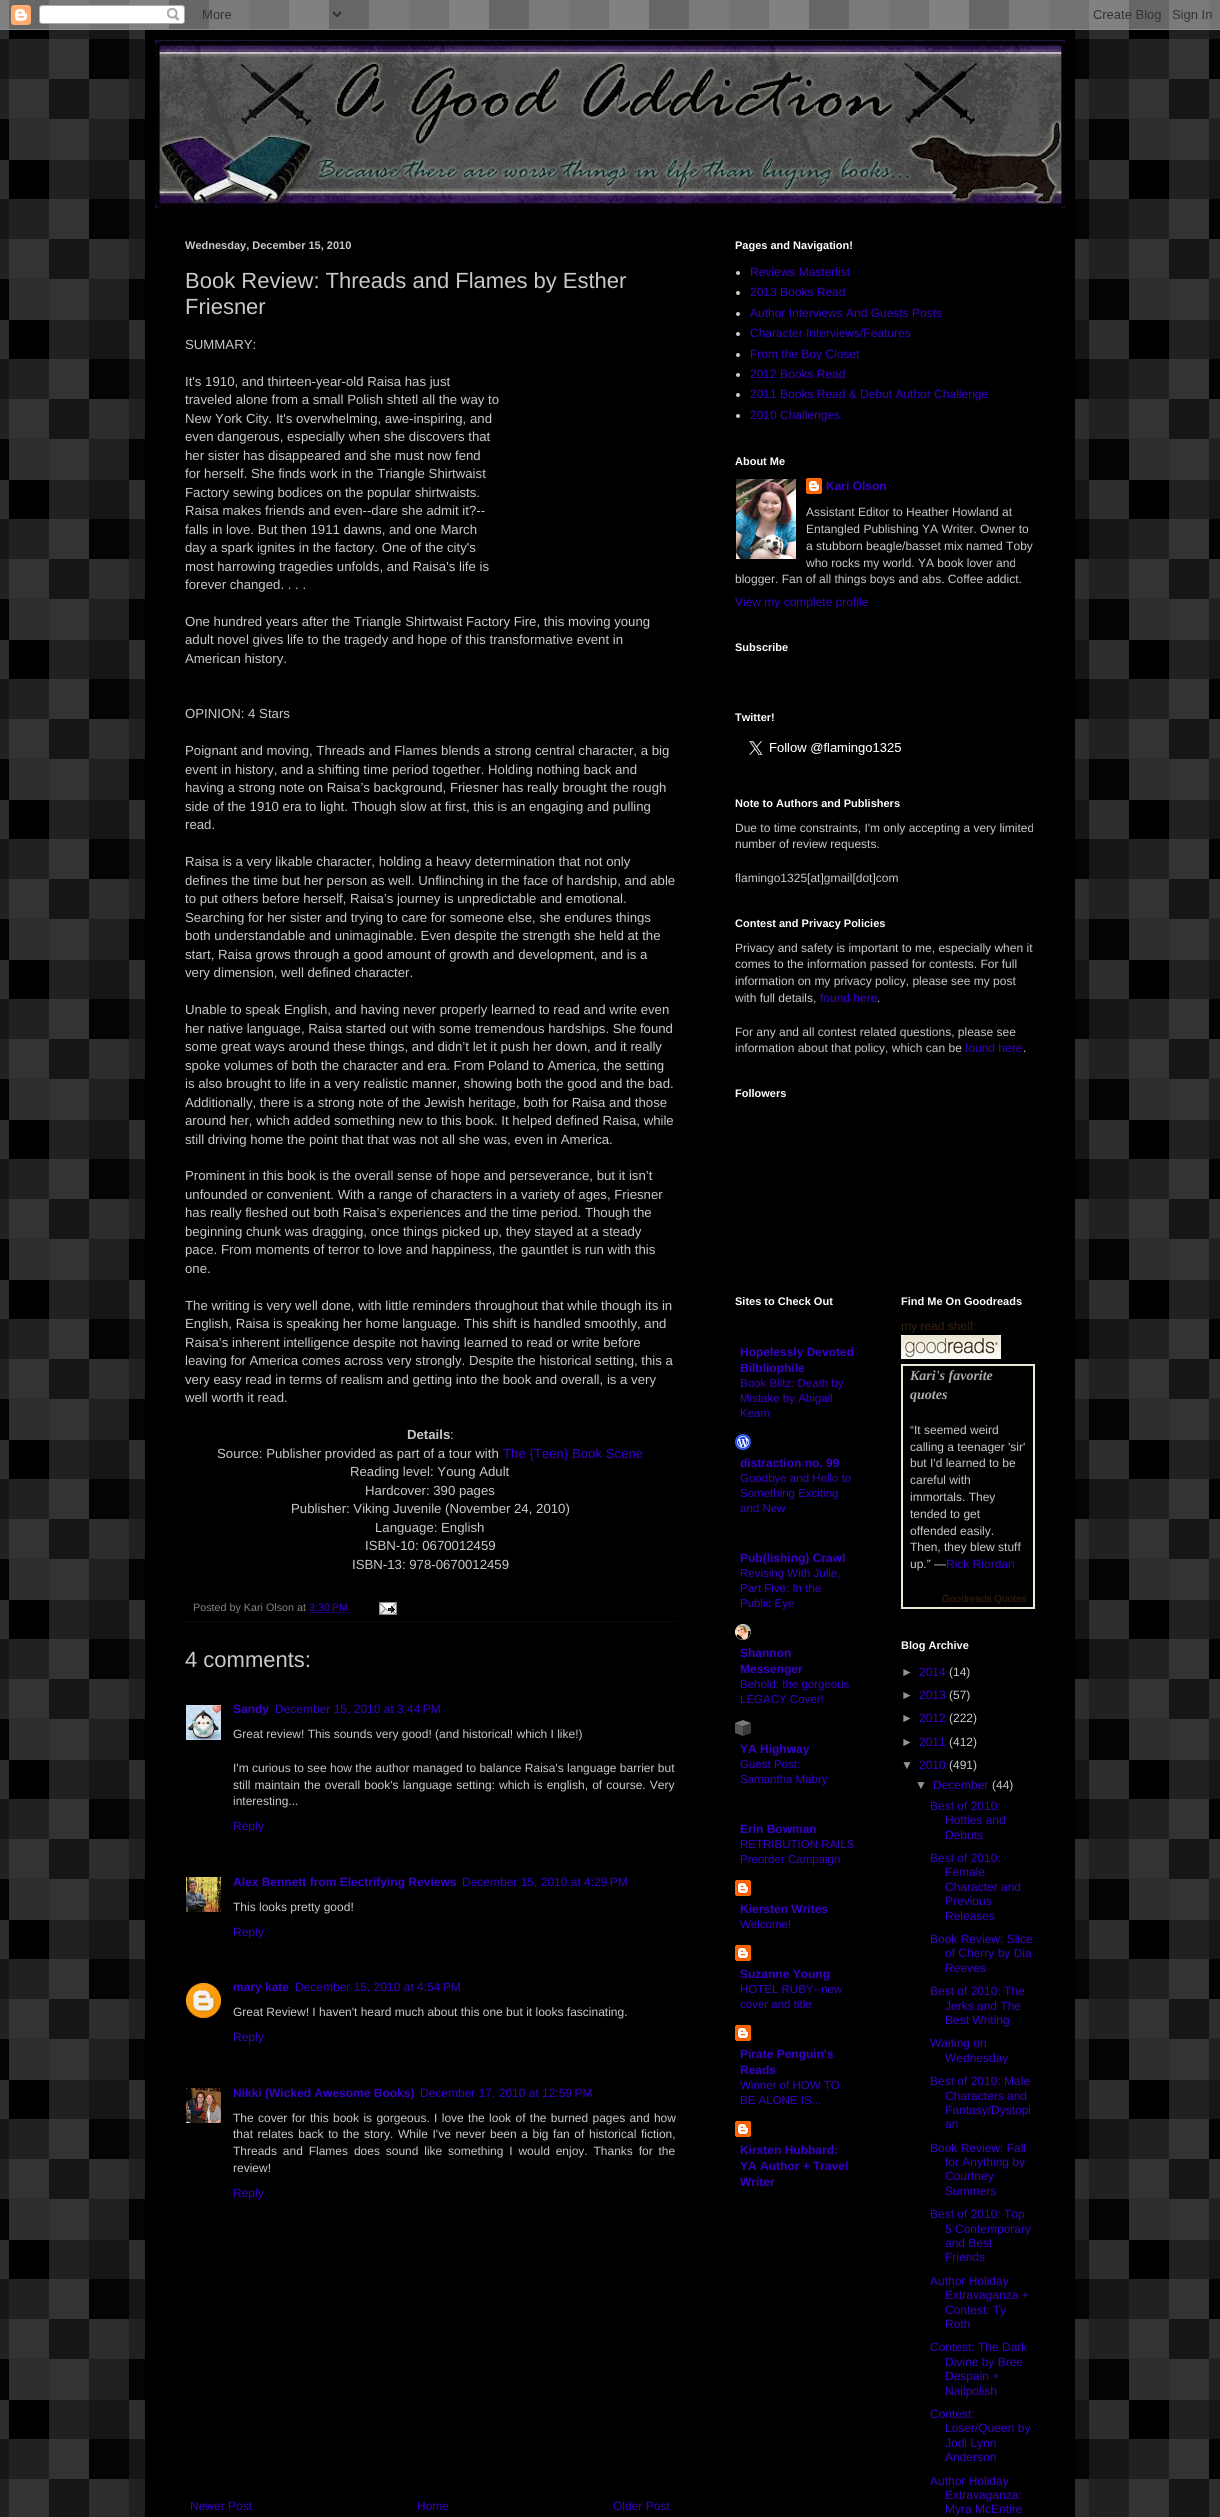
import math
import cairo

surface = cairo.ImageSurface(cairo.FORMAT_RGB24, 1220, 2517)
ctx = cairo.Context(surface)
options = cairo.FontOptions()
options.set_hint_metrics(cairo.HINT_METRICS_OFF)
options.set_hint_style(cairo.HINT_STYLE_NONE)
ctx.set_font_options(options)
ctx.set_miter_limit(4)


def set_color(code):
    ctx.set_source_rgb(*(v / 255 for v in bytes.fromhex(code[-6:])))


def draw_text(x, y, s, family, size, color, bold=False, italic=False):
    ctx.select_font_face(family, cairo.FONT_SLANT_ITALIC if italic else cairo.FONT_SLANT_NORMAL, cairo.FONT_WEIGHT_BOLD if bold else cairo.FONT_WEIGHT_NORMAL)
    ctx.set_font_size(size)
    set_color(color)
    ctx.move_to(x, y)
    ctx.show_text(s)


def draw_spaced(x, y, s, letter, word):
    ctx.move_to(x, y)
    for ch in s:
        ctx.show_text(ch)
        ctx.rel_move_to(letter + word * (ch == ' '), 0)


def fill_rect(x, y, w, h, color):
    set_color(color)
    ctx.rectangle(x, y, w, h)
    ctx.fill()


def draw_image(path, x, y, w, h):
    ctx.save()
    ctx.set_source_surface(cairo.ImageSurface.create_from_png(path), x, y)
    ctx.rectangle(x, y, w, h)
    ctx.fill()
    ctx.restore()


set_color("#000000")
ctx.paint()
draw_image("assets/img1.png", 0, 0, 1220, 2517)
draw_image("assets/img2.png", 0, 0, 1220, 30)
fill_rect(145, 30, 930, 2487, "#000000")
draw_image("assets/img3.png", 155, 40, 910, 168)
draw_text(185, 249, "Wednesday, December 15, 2010", "Liberation Sans", 11, "#c9c9c9", bold=True)
draw_text(185, 288, "Book Review: Threads and Flames by Esther", "Liberation Sans", 22, "#c9c9c9")
draw_text(185, 314, "Friesner", "Liberation Sans", 22, "#c9c9c9")
draw_text(185, 349, "SUMMARY:", "Liberation Sans", 13.2, "#c9c9c9")
draw_text(185, 386, "It's 1910, and thirteen-year-old Raisa has just", "Liberation Sans", 13.2, "#c9c9c9")
draw_text(185, 404, "traveled alone from a small Polish shtetl all the way to", "Liberation Sans", 13.2, "#c9c9c9")
draw_text(185, 423, "New York City. It's overwhelming, awe-inspiring, and", "Liberation Sans", 13.2, "#c9c9c9")
draw_text(185, 441, "even dangerous, especially when she discovers that", "Liberation Sans", 13.2, "#c9c9c9")
draw_text(185, 460, "her sister has disappeared and she must now fend", "Liberation Sans", 13.2, "#c9c9c9")
draw_text(185, 478, "for herself. She finds work in the Triangle Shirtwaist", "Liberation Sans", 13.2, "#c9c9c9")
draw_text(185, 497, "Factory sewing bodices on the popular shirtwaists.", "Liberation Sans", 13.2, "#c9c9c9")
draw_text(185, 515, "Raisa makes friends and even--dare she admit it?--", "Liberation Sans", 13.2, "#c9c9c9")
draw_text(185, 534, "falls in love. But then 1911 dawns, and one March", "Liberation Sans", 13.2, "#c9c9c9")
draw_text(185, 552, "day a spark ignites in the factory. One of the city's", "Liberation Sans", 13.2, "#c9c9c9")
draw_text(185, 571, "most harrowing tragedies unfolds, and Raisa's life is", "Liberation Sans", 13.2, "#c9c9c9")
draw_text(185, 589, "forever changed. . . .", "Liberation Sans", 13.2, "#c9c9c9")
draw_text(185, 626, "One hundred years after the Triangle Shirtwaist Factory Fire, this moving young", "Liberation Sans", 13.2, "#c9c9c9")
draw_text(185, 644, "adult novel gives life to the tragedy and hope of this transformative event in", "Liberation Sans", 13.2, "#c9c9c9")
draw_text(185, 663, "American history.", "Liberation Sans", 13.2, "#c9c9c9")
draw_text(185, 718, "OPINION: 4 Stars", "Liberation Sans", 13.2, "#c9c9c9")
draw_text(185, 755, "Poignant and moving, Threads and Flames blends a strong central character, a big", "Liberation Sans", 13.2, "#c9c9c9")
draw_text(185, 774, "event in history, and a shifting time period together. Holding nothing back and", "Liberation Sans", 13.2, "#c9c9c9")
draw_text(185, 792, "having a strong note on Raisa’s background, Friesner has really brought the rough", "Liberation Sans", 13.2, "#c9c9c9")
draw_text(185, 811, "side of the 1910 era to light. Though slow at first, this is an engaging and pulling", "Liberation Sans", 13.2, "#c9c9c9")
draw_text(185, 829, "read.", "Liberation Sans", 13.2, "#c9c9c9")
draw_text(185, 866, "Raisa is a very likable character, holding a heavy determination that not only", "Liberation Sans", 13.2, "#c9c9c9")
draw_text(185, 885, "defines the time but her person as well. Unflinching in the face of hardship, and able", "Liberation Sans", 13.2, "#c9c9c9")
draw_text(185, 903, "to put others before herself, Raisa’s journey is unpredictable and emotional.", "Liberation Sans", 13.2, "#c9c9c9")
draw_text(185, 922, "Searching for her sister and trying to care for someone else, she endures things", "Liberation Sans", 13.2, "#c9c9c9")
draw_text(185, 940, "both understandable and unimaginable. Even despite the strength she held at the", "Liberation Sans", 13.2, "#c9c9c9")
draw_text(185, 959, "start, Raisa grows through a good amount of growth and development, and is a", "Liberation Sans", 13.2, "#c9c9c9")
draw_text(185, 977, "very dimension, well defined character.", "Liberation Sans", 13.2, "#c9c9c9")
draw_text(185, 1014, "Unable to speak English, and having never properly learned to read and write even", "Liberation Sans", 13.2, "#c9c9c9")
draw_text(185, 1033, "her native language, Raisa started out with some tremendous hardships. She found", "Liberation Sans", 13.2, "#c9c9c9")
draw_text(185, 1051, "some great ways around these things, and didn’t let it push her down, and it really", "Liberation Sans", 13.2, "#c9c9c9")
draw_text(185, 1070, "spoke volumes of both the character and era. From Poland to America, the setting", "Liberation Sans", 13.2, "#c9c9c9")
draw_text(185, 1088, "is also brought to life in a very realistic manner, showing both the good and the bad.", "Liberation Sans", 13.2, "#c9c9c9")
draw_text(185, 1107, "Additionally, there is a strong note of the Jewish heritage, both for Raisa and those", "Liberation Sans", 13.2, "#c9c9c9")
draw_text(185, 1125, "around her, which added something new to this book. It helped defined Raisa, while", "Liberation Sans", 13.2, "#c9c9c9")
draw_text(185, 1144, "still driving home the point that that was not all she was, even in America.", "Liberation Sans", 13.2, "#c9c9c9")
draw_text(185, 1180, "Prominent in this book is the overall sense of hope and perseverance, but it isn’t", "Liberation Sans", 13.2, "#c9c9c9")
draw_text(185, 1199, "unfounded or convenient. With a range of characters in a variety of ages, Friesner", "Liberation Sans", 13.2, "#c9c9c9")
draw_text(185, 1217, "has really fleshed out both Raisa’s experiences and the time period. Though the", "Liberation Sans", 13.2, "#c9c9c9")
draw_text(185, 1236, "beginning chunk was dragging, once things picked up, they stayed at a steady", "Liberation Sans", 13.2, "#c9c9c9")
draw_text(185, 1254, "pace. From moments of terror to love and happiness, the gauntlet is run with this", "Liberation Sans", 13.2, "#c9c9c9")
draw_text(185, 1273, "one.", "Liberation Sans", 13.2, "#c9c9c9")
draw_text(185, 1310, "The writing is very well done, with little reminders throughout that while though its in", "Liberation Sans", 13.2, "#c9c9c9")
draw_text(185, 1328, "English, Raisa is speaking her home language. This shift is handled smoothly, and", "Liberation Sans", 13.2, "#c9c9c9")
draw_text(185, 1347, "Raisa’s inherent intelligence despite not having learned to read or write before", "Liberation Sans", 13.2, "#c9c9c9")
draw_text(185, 1365, "leaving for America comes across very strongly. Despite the historical setting, this a", "Liberation Sans", 13.2, "#c9c9c9")
draw_text(185, 1384, "very easy read in terms of realism and getting into the book and overall, is a very", "Liberation Sans", 13.2, "#c9c9c9")
draw_text(185, 1402, "well worth it read.", "Liberation Sans", 13.2, "#c9c9c9")
draw_text(407, 1439, "Details", "Liberation Sans", 13.2, "#c9c9c9", bold=True)
draw_text(450, 1439, ":", "Liberation Sans", 13.2, "#c9c9c9")
draw_text(217, 1458, "Source: Publisher provided as part of a tour with", "Liberation Sans", 13.2, "#c9c9c9")
draw_text(503, 1458, "The {Teen} Book Scene", "Liberation Sans", 13.2, "#3800ca")
draw_text(350, 1476, "Reading level: Young Adult", "Liberation Sans", 13.2, "#c9c9c9")
draw_text(365, 1495, "Hardcover: 390 pages", "Liberation Sans", 13.2, "#c9c9c9")
draw_text(291, 1513, "Publisher: Viking Juvenile (November 24, 2010)", "Liberation Sans", 13.2, "#c9c9c9")
draw_text(375, 1532, "Language: English", "Liberation Sans", 13.2, "#c9c9c9")
draw_text(365, 1550, "ISBN-10: 0670012459", "Liberation Sans", 13.2, "#c9c9c9")
draw_text(352, 1569, "ISBN-13: 978-0670012459", "Liberation Sans", 13.2, "#c9c9c9")
fill_rect(183, 1621, 494, 1, "#0c0c0c")
draw_text(193, 1611, "Posted by Kari Olson at", "Liberation Sans", 10.75, "#828282")
draw_text(309, 1611, "3:30 PM", "Liberation Sans", 10.75, "#3800ca")
ctx.new_path()
ctx.move_to(309.5, 1612.5)
ctx.line_to(349, 1612.5)
ctx.set_line_width(1)
ctx.set_dash([1, 1])
ctx.stroke()
draw_image("assets/img4.png", 379, 1602, 18, 13)
draw_text(185, 1667, "4 comments:", "Liberation Sans", 22, "#c9c9c9")
draw_image("assets/img5.png", 186, 1705, 35, 35)
draw_text(233, 1713, "Sandy", "Liberation Sans", 12, "#3800ca", bold=True)
draw_text(275, 1713, "December 15, 2010 at 3:44 PM", "Liberation Sans", 12, "#3800ca")
draw_text(233, 1738, "Great review! This sounds very good! (and historical! which I like!)", "Liberation Sans", 12, "#c9c9c9")
draw_text(233, 1772, "I'm curious to see how the author managed to balance Raisa's language barrier but", "Liberation Sans", 12, "#c9c9c9")
draw_spaced(233, 1789, "still maintain the overall book's language setting: which is english, of course. Very", 0, 0.8)
draw_text(233, 1805, "interesting...", "Liberation Sans", 12, "#c9c9c9")
draw_text(233, 1830, "Reply", "Liberation Sans", 12, "#3800ca")
draw_image("assets/img6.png", 186, 1877, 35, 35)
draw_text(233, 1886, "Alex Bennett from Electrifying Reviews", "Liberation Sans", 12, "#3800ca", bold=True)
draw_text(462, 1886, "December 15, 2010 at 4:29 PM", "Liberation Sans", 12, "#3800ca")
draw_text(233, 1911, "This looks pretty good!", "Liberation Sans", 12, "#c9c9c9")
draw_text(233, 1936, "Reply", "Liberation Sans", 12, "#3800ca")
draw_image("assets/img7.png", 186, 1983, 35, 35)
draw_text(233, 1991, "mary kate", "Liberation Sans", 12, "#3800ca", bold=True)
draw_text(295, 1991, "December 15, 2010 at 4:54 PM", "Liberation Sans", 12, "#3800ca")
draw_text(233, 2016, "Great Review! I haven't heard much about this one but it looks fascinating.", "Liberation Sans", 12, "#c9c9c9")
draw_text(233, 2041, "Reply", "Liberation Sans", 12, "#3800ca")
draw_image("assets/img8.png", 186, 2088, 35, 35)
draw_text(233, 2097, "Nikki (Wicked Awesome Books)", "Liberation Sans", 12, "#3800ca", bold=True)
draw_text(420, 2097, "December 17, 2010 at 12:59 PM", "Liberation Sans", 12, "#3800ca")
set_color("#c9c9c9")
draw_spaced(233, 2122, "The cover for this book is gorgeous. I love the look of the burned pages and how", 0, 1)
draw_spaced(233, 2138, "that relates back to the story. While I've never been a big fan of historical fiction,", 0, 1.25)
draw_spaced(233, 2155, "Threads and Flames does sound like something I would enjoy. Thanks for the", 0, 2.5)
draw_text(233, 2172, "review!", "Liberation Sans", 12, "#c9c9c9")
draw_text(233, 2197, "Reply", "Liberation Sans", 12, "#3800ca")
draw_text(190, 2510, "Newer Post", "Liberation Sans", 12, "#3800ca")
draw_text(417, 2510, "Home", "Liberation Sans", 12, "#3800ca")
draw_text(613, 2510, "Older Post", "Liberation Sans", 12, "#3800ca")
draw_text(735, 249, "Pages and Navigation!", "Liberation Sans", 11, "#ffffff", bold=True)
set_color("#c9c9c9")
ctx.new_path()
ctx.arc(738, 273, 2, 0, 2 * math.pi)
ctx.fill()
draw_text(750, 276, "Reviews Masterlist", "Liberation Sans", 12, "#3800ca")
set_color("#c9c9c9")
ctx.new_path()
ctx.arc(738, 293, 2, 0, 2 * math.pi)
ctx.fill()
draw_text(750, 296, "2013 Books Read", "Liberation Sans", 12, "#3800ca")
set_color("#c9c9c9")
ctx.new_path()
ctx.arc(738, 314, 2, 0, 2 * math.pi)
ctx.fill()
draw_text(750, 317, "Author Interviews And Guests Posts", "Liberation Sans", 12, "#3800ca")
set_color("#c9c9c9")
ctx.new_path()
ctx.arc(738, 334, 2, 0, 2 * math.pi)
ctx.fill()
draw_text(750, 337, "Character Interviews/Features", "Liberation Sans", 12, "#3800ca")
set_color("#c9c9c9")
ctx.new_path()
ctx.arc(738, 355, 2, 0, 2 * math.pi)
ctx.fill()
draw_text(750, 358, "From the Boy Closet", "Liberation Sans", 12, "#3800ca")
set_color("#c9c9c9")
ctx.new_path()
ctx.arc(738, 375, 2, 0, 2 * math.pi)
ctx.fill()
draw_text(750, 378, "2012 Books Read", "Liberation Sans", 12, "#3800ca")
set_color("#c9c9c9")
ctx.new_path()
ctx.arc(738, 395, 2, 0, 2 * math.pi)
ctx.fill()
draw_text(750, 398, "2011 Books Read & Debut Author Challenge", "Liberation Sans", 12, "#3800ca")
set_color("#c9c9c9")
ctx.new_path()
ctx.arc(738, 416, 2, 0, 2 * math.pi)
ctx.fill()
draw_text(750, 419, "2010 Challenges", "Liberation Sans", 12, "#3800ca")
draw_text(735, 465, "About Me", "Liberation Sans", 11, "#ffffff", bold=True)
draw_image("assets/img9.png", 736, 479, 60, 80)
draw_image("assets/img10.png", 806, 478, 16, 16)
draw_text(826, 490, "Kari Olson", "Liberation Sans", 12, "#3800ca", bold=True)
draw_text(806, 516, "Assistant Editor to Heather Howland at", "Liberation Sans", 12, "#c9c9c9")
draw_text(806, 533, "Entangled Publishing YA Writer. Owner to", "Liberation Sans", 12, "#c9c9c9")
draw_text(806, 550, "a stubborn beagle/basset mix named Toby", "Liberation Sans", 12, "#c9c9c9")
draw_text(806, 567, "who rocks my world. YA book lover and", "Liberation Sans", 12, "#c9c9c9")
draw_text(735, 583, "blogger. Fan of all things boys and abs. Coffee addict.", "Liberation Sans", 12, "#c9c9c9")
draw_text(735, 606, "View my complete profile", "Liberation Sans", 12, "#3800ca")
draw_text(735, 651, "Subscribe", "Liberation Sans", 11, "#ffffff", bold=True)
draw_text(735, 721, "Twitter!", "Liberation Sans", 11, "#ffffff", bold=True)
draw_image("assets/img11.png", 749, 741, 152, 14)
draw_text(735, 807, "Note to Authors and Publishers", "Liberation Sans", 11, "#ffffff", bold=True)
draw_text(735, 832, "Due to time constraints, I'm only accepting a very limited", "Liberation Sans", 12, "#c9c9c9")
draw_text(735, 848, "number of review requests.", "Liberation Sans", 12, "#c9c9c9")
draw_text(735, 882, "flamingo1325[at]gmail[dot]com", "Liberation Sans", 12, "#c9c9c9")
draw_text(735, 927, "Contest and Privacy Policies", "Liberation Sans", 11, "#ffffff", bold=True)
draw_text(735, 952, "Privacy and safety is important to me, especially when it", "Liberation Sans", 12, "#c9c9c9")
draw_text(735, 968, "comes to the information passed for contests. For full", "Liberation Sans", 12, "#c9c9c9")
draw_text(735, 985, "information on my privacy policy, please see my post", "Liberation Sans", 12, "#c9c9c9")
draw_text(735, 1002, "with full details,", "Liberation Sans", 12, "#c9c9c9")
draw_text(820, 1002, "found here", "Liberation Sans", 12, "#3800ca")
draw_text(877, 1002, ".", "Liberation Sans", 12, "#c9c9c9")
draw_text(735, 1036, "For any and all contest related questions, please see", "Liberation Sans", 12, "#c9c9c9")
draw_text(735, 1052, "information about that policy, which can be", "Liberation Sans", 12, "#c9c9c9")
draw_text(965, 1052, "found here", "Liberation Sans", 12, "#3800ca")
draw_text(1023, 1052, ".", "Liberation Sans", 12, "#c9c9c9")
draw_text(735, 1097, "Followers", "Liberation Sans", 11, "#ffffff", bold=True)
draw_text(735, 1305, "Sites to Check Out", "Liberation Sans", 11, "#ffffff", bold=True)
draw_text(740, 1356, "Hopelessly Devoted", "Liberation Sans", 12, "#3800ca", bold=True)
draw_text(740, 1372, "Bilbliophile", "Liberation Sans", 12, "#3800ca", bold=True)
draw_text(740, 1387, "Book Blitz: Death by", "Liberation Sans", 11.5, "#3800ca")
draw_text(740, 1402, "Mistake by Abigail", "Liberation Sans", 11.5, "#3800ca")
draw_text(740, 1417, "Keam", "Liberation Sans", 11.5, "#3800ca")
draw_image("assets/img12.png", 735, 1434, 16, 16)
draw_text(740, 1467, "distraction no. 99", "Liberation Sans", 12, "#3800ca", bold=True)
draw_text(740, 1482, "Goodbye and Hello to", "Liberation Sans", 11.5, "#3800ca")
draw_text(740, 1497, "Something Exciting", "Liberation Sans", 11.5, "#3800ca")
draw_text(740, 1512, "and New", "Liberation Sans", 11.5, "#3800ca")
draw_text(740, 1562, "Pub(lishing) Crawl", "Liberation Sans", 12, "#3800ca", bold=True)
draw_text(740, 1577, "Revising With Julie,", "Liberation Sans", 11.5, "#3800ca")
draw_text(740, 1592, "Part Five: In the", "Liberation Sans", 11.5, "#3800ca")
draw_text(740, 1607, "Public Eye", "Liberation Sans", 11.5, "#3800ca")
draw_image("assets/img13.png", 735, 1624, 16, 16)
draw_text(740, 1657, "Shannon", "Liberation Sans", 12, "#3800ca", bold=True)
draw_text(740, 1673, "Messenger", "Liberation Sans", 12, "#3800ca", bold=True)
draw_text(740, 1688, "Behold: the gorgeous", "Liberation Sans", 11.5, "#3800ca")
draw_text(740, 1703, "LEGACY Cover!", "Liberation Sans", 11.5, "#3800ca")
draw_image("assets/img14.png", 735, 1720, 16, 16)
draw_text(740, 1753, "YA Highway", "Liberation Sans", 12, "#3800ca", bold=True)
draw_text(740, 1768, "Guest Post:", "Liberation Sans", 11.5, "#3800ca")
draw_text(740, 1783, "Samantha Mabry", "Liberation Sans", 11.5, "#3800ca")
draw_text(740, 1833, "Erin Bowman", "Liberation Sans", 12, "#3800ca", bold=True)
draw_text(740, 1848, "RETRIBUTION RAILS", "Liberation Sans", 11.5, "#3800ca")
draw_text(740, 1863, "Preorder Campaign", "Liberation Sans", 11.5, "#3800ca")
draw_image("assets/img15.png", 735, 1880, 16, 16)
draw_text(740, 1913, "Kiersten Writes", "Liberation Sans", 12, "#3800ca", bold=True)
draw_text(740, 1928, "Welcome!", "Liberation Sans", 11.5, "#3800ca")
draw_image("assets/img15.png", 735, 1945, 16, 16)
draw_text(740, 1978, "Suzanne Young", "Liberation Sans", 12, "#3800ca", bold=True)
draw_text(740, 1993, "HOTEL RUBY--new", "Liberation Sans", 11.5, "#3800ca")
draw_text(740, 2008, "cover and title", "Liberation Sans", 11.5, "#3800ca")
draw_image("assets/img15.png", 735, 2025, 16, 16)
draw_text(740, 2058, "Pirate Penguin's", "Liberation Sans", 12, "#3800ca", bold=True)
draw_text(740, 2074, "Reads", "Liberation Sans", 12, "#3800ca", bold=True)
draw_text(740, 2089, "Winner of HOW TO", "Liberation Sans", 11.5, "#3800ca")
draw_text(740, 2104, "BE ALONE IS...", "Liberation Sans", 11.5, "#3800ca")
draw_image("assets/img15.png", 735, 2121, 16, 16)
draw_text(740, 2154, "Kirsten Hubbard:", "Liberation Sans", 12, "#3800ca", bold=True)
draw_text(740, 2170, "YA Author + Travel", "Liberation Sans", 12, "#3800ca", bold=True)
draw_text(740, 2186, "Writer", "Liberation Sans", 12, "#3800ca", bold=True)
draw_text(901, 1305, "Find Me On Goodreads", "Liberation Sans", 11, "#ffffff", bold=True)
draw_text(901, 1330, "my read shelf:", "Liberation Sans", 12, "#382110")
draw_image("assets/img16.png", 901, 1335, 100, 24)
ctx.rectangle(902, 1365, 132, 243)
set_color("#ebe8d5")
ctx.set_line_width(2)
ctx.set_dash([])
ctx.stroke()
draw_text(910, 1380, "Kari's favorite", "Liberation Serif", 14, "#aaaaaa", bold=True, italic=True)
draw_text(910, 1399, "quotes", "Liberation Serif", 14, "#aaaaaa", bold=True, italic=True)
draw_text(910, 1434, "“It seemed weird", "Liberation Sans", 12, "#c9c9c9")
draw_text(910, 1451, "calling a teenager 'sir'", "Liberation Sans", 12, "#c9c9c9")
draw_text(910, 1467, "but I'd learned to be", "Liberation Sans", 12, "#c9c9c9")
draw_text(910, 1484, "careful with", "Liberation Sans", 12, "#c9c9c9")
draw_text(910, 1501, "immortals. They", "Liberation Sans", 12, "#c9c9c9")
draw_text(910, 1518, "tended to get", "Liberation Sans", 12, "#c9c9c9")
draw_text(910, 1535, "offended easily.", "Liberation Sans", 12, "#c9c9c9")
draw_text(910, 1551, "Then, they blew stuff", "Liberation Sans", 12, "#c9c9c9")
draw_text(910, 1568, "up.” —", "Liberation Sans", 12, "#c9c9c9")
draw_text(946, 1568, "Rick Riordan", "Liberation Sans", 12, "#3800ca")
draw_text(942, 1602, "Goodreads Quotes", "Liberation Sans", 10, "#382110")
draw_text(901, 1649, "Blog Archive", "Liberation Sans", 11, "#ffffff", bold=True)
draw_text(901, 1676, "►", "Liberation Sans", 12, "#949494")
draw_text(919, 1676, "2014", "Liberation Sans", 12, "#3800ca")
draw_text(949, 1676, "(14)", "Liberation Sans", 12, "#c9c9c9")
draw_text(901, 1699, "►", "Liberation Sans", 12, "#949494")
draw_text(919, 1699, "2013", "Liberation Sans", 12, "#3800ca")
draw_text(949, 1699, "(57)", "Liberation Sans", 12, "#c9c9c9")
draw_text(901, 1722, "►", "Liberation Sans", 12, "#949494")
draw_text(919, 1722, "2012", "Liberation Sans", 12, "#3800ca")
draw_text(949, 1722, "(222)", "Liberation Sans", 12, "#c9c9c9")
draw_text(901, 1746, "►", "Liberation Sans", 12, "#949494")
draw_text(919, 1746, "2011", "Liberation Sans", 12, "#3800ca")
draw_text(949, 1746, "(412)", "Liberation Sans", 12, "#c9c9c9")
draw_text(901, 1769, "▼", "Liberation Sans", 12, "#949494")
draw_text(919, 1769, "2010", "Liberation Sans", 12, "#3800ca")
draw_text(949, 1769, "(491)", "Liberation Sans", 12, "#c9c9c9")
draw_text(915, 1789, "▼", "Liberation Sans", 12, "#949494")
draw_text(933, 1789, "December", "Liberation Sans", 12, "#3800ca")
draw_text(992, 1789, "(44)", "Liberation Sans", 12, "#c9c9c9")
draw_text(930, 1810, "Best of 2010:", "Liberation Sans", 12, "#3800ca")
draw_text(945, 1824, "Hotties and", "Liberation Sans", 12, "#3800ca")
draw_text(945, 1839, "Debuts", "Liberation Sans", 12, "#3800ca")
draw_text(930, 1862, "Best of 2010:", "Liberation Sans", 12, "#3800ca")
draw_text(945, 1876, "Female", "Liberation Sans", 12, "#3800ca")
draw_text(945, 1891, "Character and", "Liberation Sans", 12, "#3800ca")
draw_text(945, 1905, "Previous", "Liberation Sans", 12, "#3800ca")
draw_text(945, 1920, "Releases", "Liberation Sans", 12, "#3800ca")
draw_text(930, 1943, "Book Review: Slice", "Liberation Sans", 12, "#3800ca")
draw_text(945, 1957, "of Cherry by Dia", "Liberation Sans", 12, "#3800ca")
draw_text(945, 1972, "Reeves", "Liberation Sans", 12, "#3800ca")
draw_text(930, 1995, "Best of 2010: The", "Liberation Sans", 12, "#3800ca")
draw_text(945, 2010, "Jerks and The", "Liberation Sans", 12, "#3800ca")
draw_text(945, 2024, "Best Writing", "Liberation Sans", 12, "#3800ca")
draw_text(930, 2047, "Waiting on", "Liberation Sans", 12, "#3800ca")
draw_text(945, 2062, "Wednesday", "Liberation Sans", 12, "#3800ca")
draw_text(930, 2085, "Best of 2010: Male", "Liberation Sans", 12, "#3800ca")
draw_text(945, 2100, "Characters and", "Liberation Sans", 12, "#3800ca")
draw_text(945, 2114, "Fantasy/Dystopi", "Liberation Sans", 12, "#3800ca")
draw_text(945, 2128, "an", "Liberation Sans", 12, "#3800ca")
draw_text(930, 2152, "Book Review: Fall", "Liberation Sans", 12, "#3800ca")
draw_text(945, 2166, "for Anything by", "Liberation Sans", 12, "#3800ca")
draw_text(945, 2180, "Courtney", "Liberation Sans", 12, "#3800ca")
draw_text(945, 2195, "Summers", "Liberation Sans", 12, "#3800ca")
draw_text(930, 2218, "Best of 2010: Top", "Liberation Sans", 12, "#3800ca")
draw_text(945, 2233, "5 Contemporary", "Liberation Sans", 12, "#3800ca")
draw_text(945, 2247, "and Best", "Liberation Sans", 12, "#3800ca")
draw_text(945, 2261, "Friends", "Liberation Sans", 12, "#3800ca")
draw_text(930, 2285, "Author Holiday", "Liberation Sans", 12, "#3800ca")
draw_text(945, 2299, "Extravaganza +", "Liberation Sans", 12, "#3800ca")
draw_text(945, 2314, "Contest: Ty", "Liberation Sans", 12, "#3800ca")
draw_text(945, 2328, "Roth", "Liberation Sans", 12, "#3800ca")
draw_text(930, 2351, "Contest: The Dark", "Liberation Sans", 12, "#3800ca")
draw_text(945, 2366, "Divine by Bree", "Liberation Sans", 12, "#3800ca")
draw_text(945, 2380, "Despain +", "Liberation Sans", 12, "#3800ca")
draw_text(945, 2395, "Nailpolish", "Liberation Sans", 12, "#3800ca")
draw_text(930, 2418, "Contest:", "Liberation Sans", 12, "#3800ca")
draw_text(945, 2432, "Loser/Queen by", "Liberation Sans", 12, "#3800ca")
draw_text(945, 2447, "Jodi Lynn", "Liberation Sans", 12, "#3800ca")
draw_text(945, 2461, "Anderson", "Liberation Sans", 12, "#3800ca")
draw_text(930, 2485, "Author Holiday", "Liberation Sans", 12, "#3800ca")
draw_text(945, 2499, "Extravaganza:", "Liberation Sans", 12, "#3800ca")
draw_text(945, 2513, "Myra McEntire", "Liberation Sans", 12, "#3800ca")
surface.write_to_png("output.png")
